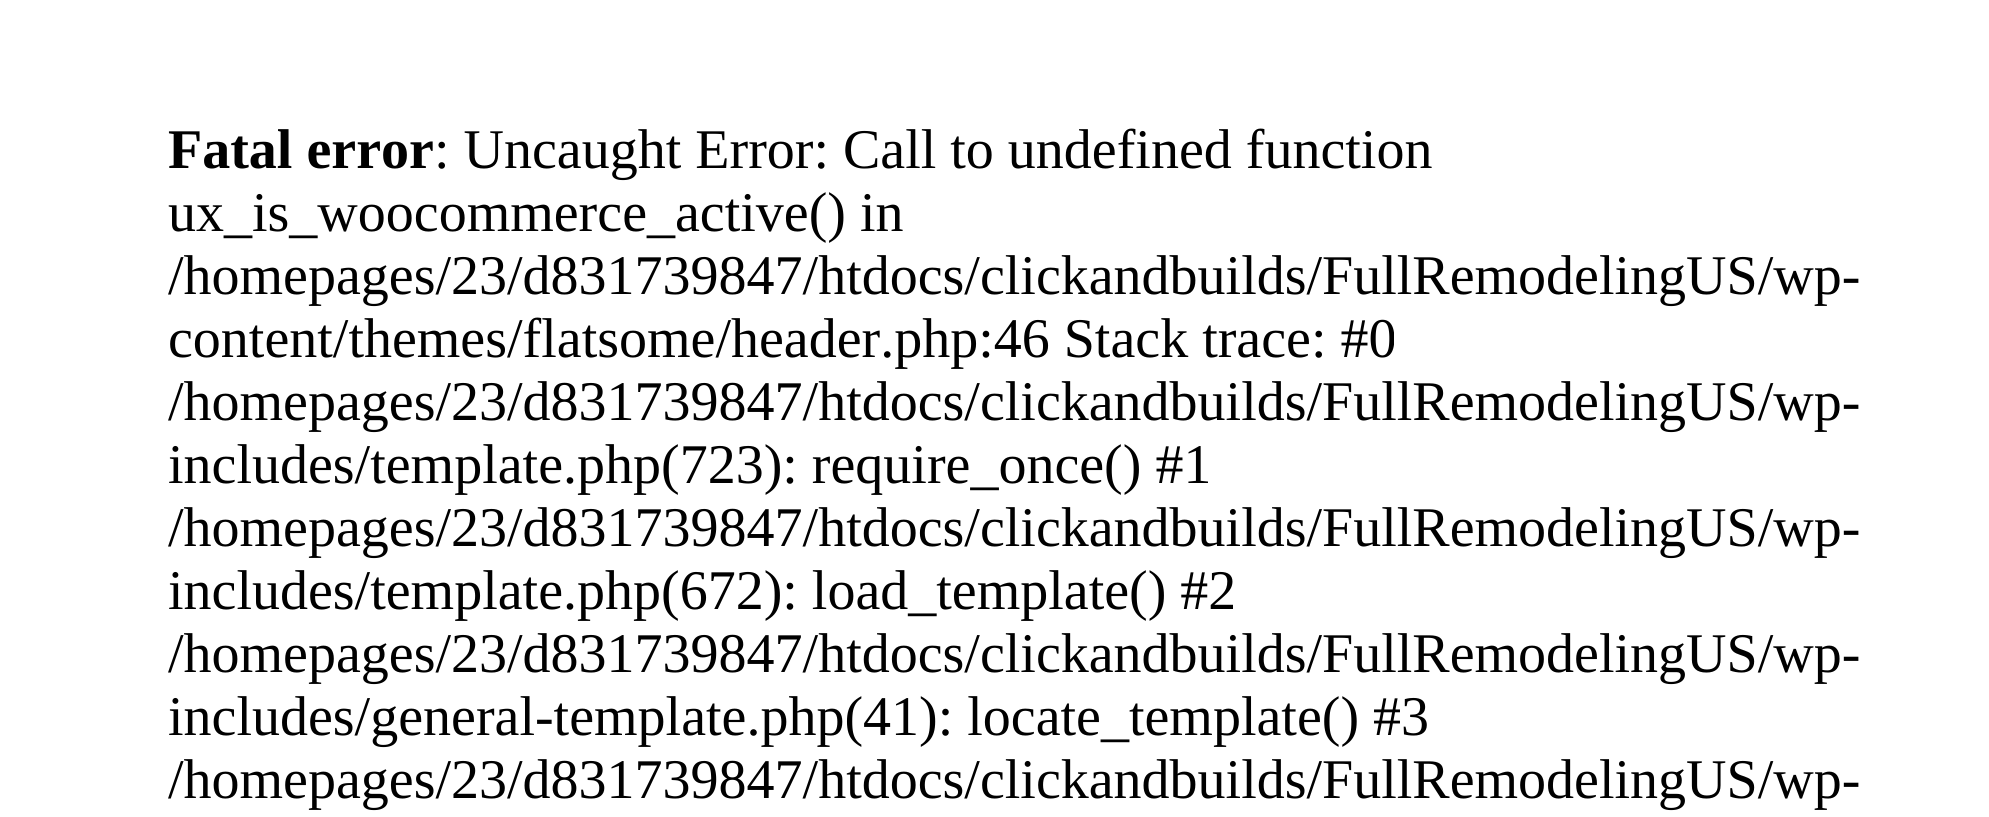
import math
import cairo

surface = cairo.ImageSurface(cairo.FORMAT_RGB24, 1989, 817)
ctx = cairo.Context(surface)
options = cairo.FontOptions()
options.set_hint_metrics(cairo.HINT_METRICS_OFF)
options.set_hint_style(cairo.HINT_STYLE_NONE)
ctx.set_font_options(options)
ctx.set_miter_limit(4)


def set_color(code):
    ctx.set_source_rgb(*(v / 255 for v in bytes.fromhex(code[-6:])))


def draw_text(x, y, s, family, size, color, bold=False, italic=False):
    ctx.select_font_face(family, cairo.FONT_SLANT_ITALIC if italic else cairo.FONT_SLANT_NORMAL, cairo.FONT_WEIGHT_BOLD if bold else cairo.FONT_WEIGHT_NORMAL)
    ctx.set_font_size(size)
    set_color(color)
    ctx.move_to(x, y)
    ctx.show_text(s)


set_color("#ffffff")
ctx.paint()
draw_text(168, 168, "Fatal error", "Liberation Serif", 56, "#000000", bold=True)
draw_text(434, 168, ": Uncaught Error: Call to undefined function", "Liberation Serif", 56, "#000000")
draw_text(168, 231, "ux_is_woocommerce_active() in", "Liberation Serif", 56, "#000000")
draw_text(168, 294, "/homepages/23/d831739847/htdocs/clickandbuilds/FullRemodelingUS/wp-", "Liberation Serif", 56, "#000000")
draw_text(168, 357, "content/themes/flatsome/header.php:46 Stack trace: #0", "Liberation Serif", 56, "#000000")
draw_text(168, 420, "/homepages/23/d831739847/htdocs/clickandbuilds/FullRemodelingUS/wp-", "Liberation Serif", 56, "#000000")
draw_text(168, 483, "includes/template.php(723): require_once() #1", "Liberation Serif", 56, "#000000")
draw_text(168, 546, "/homepages/23/d831739847/htdocs/clickandbuilds/FullRemodelingUS/wp-", "Liberation Serif", 56, "#000000")
draw_text(168, 609, "includes/template.php(672): load_template() #2", "Liberation Serif", 56, "#000000")
draw_text(168, 672, "/homepages/23/d831739847/htdocs/clickandbuilds/FullRemodelingUS/wp-", "Liberation Serif", 56, "#000000")
draw_text(168, 735, "includes/general-template.php(41): locate_template() #3", "Liberation Serif", 56, "#000000")
draw_text(168, 798, "/homepages/23/d831739847/htdocs/clickandbuilds/FullRemodelingUS/wp-", "Liberation Serif", 56, "#000000")
surface.write_to_png("output.png")
